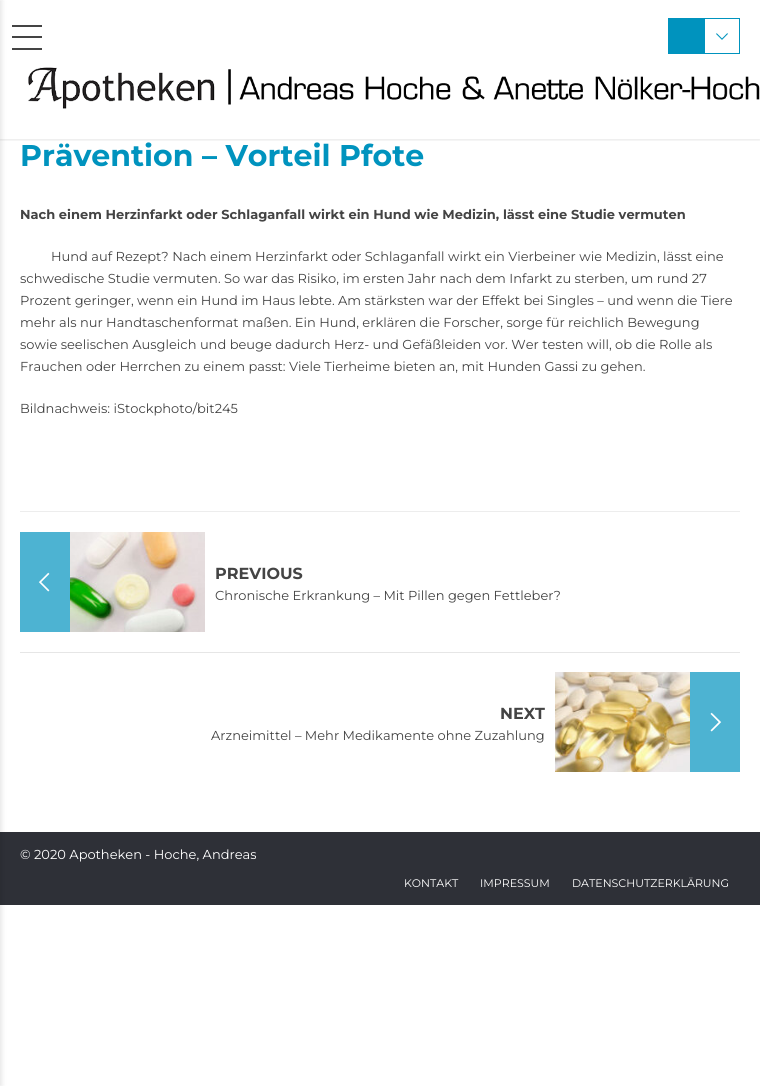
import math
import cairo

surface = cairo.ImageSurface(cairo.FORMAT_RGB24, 760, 1086)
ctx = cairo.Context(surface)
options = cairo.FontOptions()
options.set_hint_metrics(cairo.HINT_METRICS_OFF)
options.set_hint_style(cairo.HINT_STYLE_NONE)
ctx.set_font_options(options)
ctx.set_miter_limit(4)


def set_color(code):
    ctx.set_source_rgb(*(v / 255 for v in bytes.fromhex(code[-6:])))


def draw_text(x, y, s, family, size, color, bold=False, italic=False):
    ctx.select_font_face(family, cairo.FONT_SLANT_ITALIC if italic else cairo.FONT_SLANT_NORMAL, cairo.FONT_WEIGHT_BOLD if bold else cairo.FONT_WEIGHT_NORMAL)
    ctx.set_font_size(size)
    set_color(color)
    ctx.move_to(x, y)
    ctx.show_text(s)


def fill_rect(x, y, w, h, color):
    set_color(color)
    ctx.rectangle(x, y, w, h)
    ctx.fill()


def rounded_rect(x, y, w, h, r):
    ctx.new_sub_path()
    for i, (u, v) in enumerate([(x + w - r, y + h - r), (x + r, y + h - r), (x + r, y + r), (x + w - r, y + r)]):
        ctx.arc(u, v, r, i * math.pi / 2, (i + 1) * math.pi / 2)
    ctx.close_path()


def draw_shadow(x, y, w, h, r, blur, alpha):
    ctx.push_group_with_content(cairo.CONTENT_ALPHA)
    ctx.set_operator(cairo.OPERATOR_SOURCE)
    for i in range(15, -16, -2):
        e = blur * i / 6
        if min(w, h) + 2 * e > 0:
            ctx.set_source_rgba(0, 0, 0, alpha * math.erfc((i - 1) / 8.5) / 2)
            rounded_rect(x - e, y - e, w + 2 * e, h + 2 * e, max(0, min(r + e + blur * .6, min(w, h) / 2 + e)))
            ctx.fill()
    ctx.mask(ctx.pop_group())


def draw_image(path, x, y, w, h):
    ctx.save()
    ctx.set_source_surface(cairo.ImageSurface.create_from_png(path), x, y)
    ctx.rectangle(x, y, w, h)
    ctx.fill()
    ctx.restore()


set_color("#ffffff")
ctx.paint()
fill_rect(0, 832, 760, 73, "#2e3037")
set_color("#000000")
draw_shadow(-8, 0, 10, 1086, 0, 2.5, 0.1)
ctx.save()
ctx.rectangle(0, 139, 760, 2)
ctx.clip()
draw_shadow(0, 1, 760, 139, 0, 1.5, 0.1)
ctx.restore()
fill_rect(12, 25, 30, 2, "#444444")
fill_rect(12, 36, 30, 2, "#444444")
fill_rect(12, 48, 30, 2, "#444444")
fill_rect(668, 18, 36, 36, "#0093be")
ctx.rectangle(704.5, 18.5, 35, 35)
ctx.set_line_width(1)
ctx.stroke()
draw_image("assets/img1.png", 716, 33, 12, 7)
draw_image("assets/img2.png", 28, 67, 732, 42)
draw_text(20, 166, "Prävention – Vorteil Pfote", "Montserrat Thin", 30, "#0093be")
draw_text(20, 219, "Nach einem Herzinfarkt oder Schlaganfall wirkt ein Hund wie Medizin, lässt eine Studie vermuten", "Montserrat Thin", 13, "#444444")
draw_text(51, 261, "Hund auf Rezept? Nach einem Herzinfarkt oder Schlaganfall wirkt ein Vierbeiner wie Medizin, lässt eine", "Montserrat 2 Thin", 13, "#444444")
draw_text(20, 283, "schwedische Studie vermuten. So war das Risiko, im ersten Jahr nach dem Infarkt zu sterben, um rund 27", "Montserrat 2 Thin", 13, "#444444")
draw_text(20, 305, "Prozent geringer, wenn ein Hund im Haus lebte. Am stärksten war der Effekt bei Singles – und wenn die Tiere", "Montserrat 2 Thin", 13, "#444444")
draw_text(20, 327, "mehr als nur Handtaschenformat maßen. Ein Hund, erklären die Forscher, sorge für reichlich Bewegung", "Montserrat 2 Thin", 13, "#444444")
draw_text(20, 349, "sowie seelischen Ausgleich und beuge dadurch Herz- und Gefäßleiden vor. Wer testen will, ob die Rolle als", "Montserrat 2 Thin", 13, "#444444")
draw_text(20, 371, "Frauchen oder Herrchen zu einem passt: Viele Tierheime bieten an, mit Hunden Gassi zu gehen.", "Montserrat 2 Thin", 13, "#444444")
draw_text(20, 413, "Bildnachweis: iStockphoto/bit245", "Montserrat 2 Thin", 13, "#444444")
fill_rect(20, 511, 720, 1, "#ededed")
fill_rect(20, 532, 50, 100, "#4db3d2")
draw_image("assets/img3.png", 38, 572, 12, 20)
draw_image("assets/img4.png", 70, 532, 135, 100)
draw_text(215, 579, "PREVIOUS", "Montserrat Thin", 16, "#444444")
draw_text(215, 600, "Chronische Erkrankung – Mit Pillen gegen Fettleber?", "Montserrat 2 Thin", 13, "#444444")
fill_rect(20, 652, 720, 1, "#e6e6e6")
draw_text(500, 719, "NEXT", "Montserrat Thin", 16, "#444444")
draw_text(211, 740, "Arzneimittel – Mehr Medikamente ohne Zuzahlung", "Montserrat 2 Thin", 13, "#444444")
draw_image("assets/img5.png", 555, 672, 135, 100)
fill_rect(690, 672, 50, 100, "#4db3d2")
draw_image("assets/img6.png", 710, 712, 12, 20)
draw_text(20, 859, "© 2020 Apotheken - Hoche, Andreas", "Montserrat 2 Thin", 13, "#ffffff")
draw_text(404, 887, "KONTAKT", "Montserrat 2 Thin", 11, "#ffffff")
draw_text(480, 887, "IMPRESSUM", "Montserrat 2 Thin", 11, "#ffffff")
draw_text(572, 887, "DATENSCHUTZERKLÄRUNG", "Montserrat 2 Thin", 11, "#ffffff")
surface.write_to_png("output.png")
